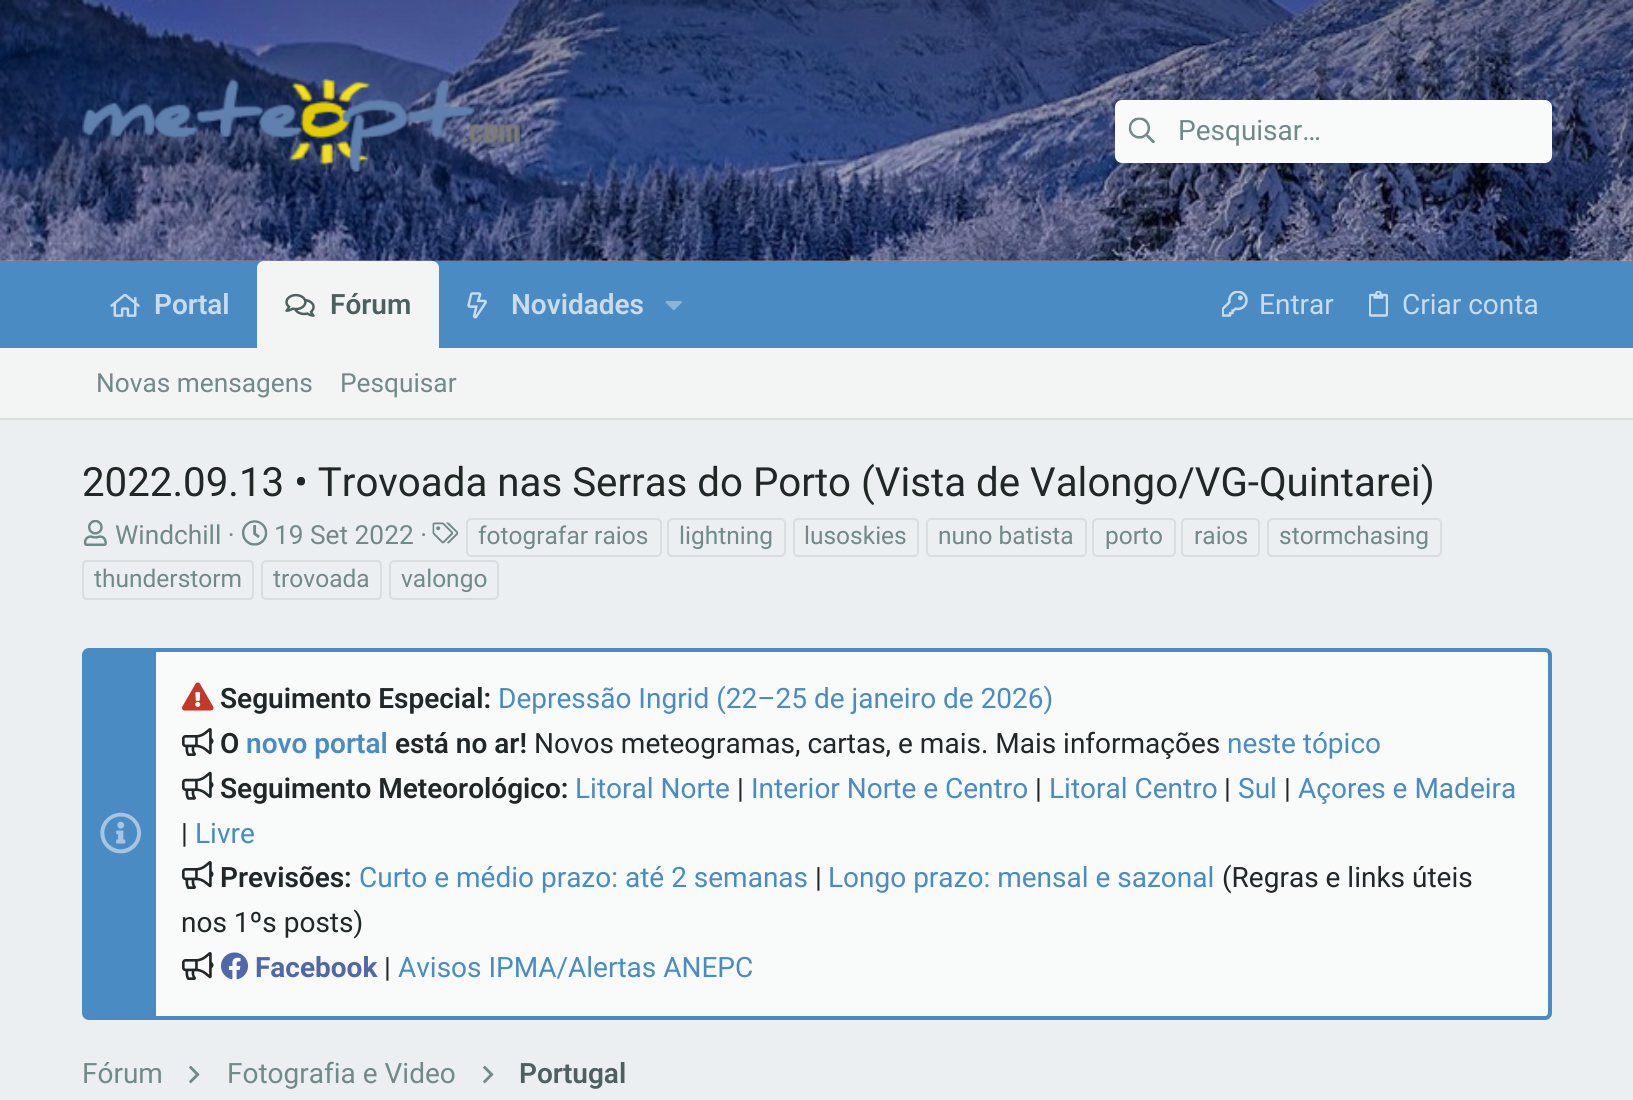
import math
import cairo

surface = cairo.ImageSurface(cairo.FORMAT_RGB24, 1633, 1100)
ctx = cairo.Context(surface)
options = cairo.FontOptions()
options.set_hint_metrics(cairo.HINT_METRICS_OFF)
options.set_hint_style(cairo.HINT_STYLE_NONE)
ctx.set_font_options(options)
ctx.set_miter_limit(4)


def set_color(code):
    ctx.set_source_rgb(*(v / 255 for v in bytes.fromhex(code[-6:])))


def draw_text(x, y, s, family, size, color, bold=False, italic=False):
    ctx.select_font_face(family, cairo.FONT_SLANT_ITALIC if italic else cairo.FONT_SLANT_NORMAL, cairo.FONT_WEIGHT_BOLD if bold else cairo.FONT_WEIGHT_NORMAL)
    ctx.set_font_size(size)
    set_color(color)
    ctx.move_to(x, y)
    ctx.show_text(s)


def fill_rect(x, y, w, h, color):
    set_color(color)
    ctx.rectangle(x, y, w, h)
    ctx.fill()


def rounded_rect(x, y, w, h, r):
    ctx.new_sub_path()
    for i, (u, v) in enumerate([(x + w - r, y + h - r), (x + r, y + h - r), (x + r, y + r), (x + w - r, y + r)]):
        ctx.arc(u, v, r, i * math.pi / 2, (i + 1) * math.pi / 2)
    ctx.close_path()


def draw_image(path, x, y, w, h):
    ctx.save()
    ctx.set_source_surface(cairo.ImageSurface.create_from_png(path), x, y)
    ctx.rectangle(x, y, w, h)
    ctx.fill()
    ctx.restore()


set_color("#eceff1")
ctx.paint()
draw_image("assets/img1.png", 0, 0, 1633, 261)
draw_image("assets/img2.png", 82, 78, 438, 94)
set_color("#f9fafa")
rounded_rect(1115, 100, 437, 63, 7)
ctx.fill()
draw_image("assets/img3.png", 1129, 117, 26, 27)
draw_text(1178, 140, "Pesquisar…", "Roboto", 28, "#718989")
fill_rect(0, 261, 1633, 87, "#4a8bc4")
draw_image("assets/img4.png", 110, 293, 30, 24)
draw_text(154, 314, "Portal", "Roboto SemiBold", 28, "#c9dced")
set_color("#f3f5f5")
ctx.new_path()
ctx.move_to(264, 261)
ctx.line_to(432, 261)
ctx.curve_to(436, 261, 439, 264, 439, 268)
ctx.line_to(439, 348)
ctx.line_to(257, 348)
ctx.line_to(257, 268)
ctx.curve_to(257, 264, 260, 261, 264, 261)
ctx.close_path()
ctx.fill()
draw_image("assets/img5.png", 285, 293, 30, 24)
draw_text(330, 314, "Fórum", "Roboto SemiBold", 28, "#4e5f5f")
draw_image("assets/img6.png", 467, 292, 20, 27)
draw_text(511, 314, "Novidades", "Roboto SemiBold", 28, "#c9dced")
draw_image("assets/img7.png", 665, 301, 17, 10)
draw_image("assets/img8.png", 1222, 291, 26, 26)
draw_text(1259, 314, "Entrar", "Roboto", 28, "#c9dced")
draw_image("assets/img9.png", 1369, 291, 19, 26)
draw_text(1402, 314, "Criar conta", "Roboto", 28, "#c9dced")
fill_rect(0, 348, 1633, 70, "#f3f5f5")
fill_rect(0, 418, 1633, 2, "#d8dede")
draw_text(96, 392, "Novas mensagens", "Roboto", 26.25, "#718989")
draw_text(340, 392, "Pesquisar", "Roboto", 26.25, "#718989")
draw_text(82, 496, "2022.09.13 • Trovoada nas Serras do Porto (Vista de Valongo/VG-Quintarei)", "Roboto", 40.25, "#202727")
draw_image("assets/img10.png", 83, 520, 24, 26)
draw_text(115, 544, "Windchill ·", "Roboto", 26.25, "#718989")
draw_image("assets/img11.png", 432, 522, 27, 22)
rounded_rect(467, 519, 194, 37, 4)
set_color("#d8dede")
ctx.stroke()
draw_text(478, 544, "fotografar raios", "Roboto", 24.5, "#718989")
rounded_rect(668, 519, 117, 37, 4)
set_color("#d8dede")
ctx.stroke()
draw_text(679, 544, "lightning", "Roboto", 24.5, "#718989")
rounded_rect(794, 519, 124, 37, 4)
set_color("#d8dede")
ctx.stroke()
draw_text(804, 544, "lusoskies", "Roboto", 24.5, "#718989")
rounded_rect(927, 519, 159, 37, 4)
set_color("#d8dede")
ctx.stroke()
draw_text(938, 544, "nuno batista", "Roboto", 24.5, "#718989")
rounded_rect(1093, 519, 82, 37, 4)
set_color("#d8dede")
ctx.stroke()
draw_text(1105, 544, "porto", "Roboto", 24.5, "#718989")
rounded_rect(1182, 519, 77, 37, 4)
set_color("#d8dede")
ctx.stroke()
draw_text(1194, 544, "raios", "Roboto", 24.5, "#718989")
rounded_rect(1268, 519, 173, 37, 4)
set_color("#d8dede")
ctx.stroke()
draw_text(1279, 544, "stormchasing", "Roboto", 24.5, "#718989")
rounded_rect(83, 561, 170, 38, 4)
set_color("#d8dede")
ctx.stroke()
draw_text(94, 587, "thunderstorm", "Roboto", 24.5, "#718989")
rounded_rect(262, 561, 119, 38, 4)
set_color("#d8dede")
ctx.stroke()
draw_text(273, 587, "trovoada", "Roboto", 24.5, "#718989")
rounded_rect(390, 561, 108, 38, 4)
set_color("#d8dede")
ctx.stroke()
draw_text(401, 587, "valongo", "Roboto", 24.5, "#718989")
draw_image("assets/img12.png", 242, 520, 26, 26)
draw_text(274, 544, "19 Set 2022 ·", "Roboto", 26.25, "#718989")
set_color("#f9fafa")
rounded_rect(84, 650, 1466, 368, 5)
ctx.fill_preserve()
set_color("#4a8bc4")
ctx.set_line_width(4)
ctx.stroke()
fill_rect(86, 652, 70, 364, "#4a8bc4")
draw_image("assets/img13.png", 100, 812, 41, 42)
draw_image("assets/img14.png", 182, 682, 32, 29)
draw_text(220, 708, "Seguimento Especial:", "Roboto SemiBold", 28, "#202727")
draw_text(498, 708, "Depressão Ingrid (22–25 de janeiro de 2026)", "Roboto", 28, "#4a8bc4")
draw_image("assets/img15.png", 182, 728, 32, 28)
draw_text(220, 753, "O", "Roboto SemiBold", 28, "#202727")
draw_text(246, 753, "novo portal", "Roboto SemiBold", 28, "#4a8bc4")
draw_text(395, 753, "está no ar!", "Roboto SemiBold", 28, "#202727")
draw_text(534, 753, "Novos meteogramas, cartas, e mais. Mais informações", "Roboto", 28, "#202727")
draw_text(1227, 753, "neste tópico", "Roboto", 28, "#4a8bc4")
draw_image("assets/img16.png", 182, 771, 32, 29)
draw_text(220, 798, "Seguimento Meteorológico:", "Roboto SemiBold", 28, "#202727")
draw_text(575, 798, "Litoral Norte", "Roboto", 28, "#4a8bc4")
draw_text(737, 798, "|", "Roboto", 28, "#202727")
draw_text(751, 798, "Interior Norte e Centro", "Roboto", 28, "#4a8bc4")
draw_text(1035, 798, "|", "Roboto", 28, "#202727")
draw_text(1049, 798, "Litoral Centro", "Roboto", 28, "#4a8bc4")
draw_text(1224, 798, "|", "Roboto", 28, "#202727")
draw_text(1238, 798, "Sul", "Roboto", 28, "#4a8bc4")
draw_text(1284, 798, "|", "Roboto", 28, "#202727")
draw_text(1298, 798, "Açores e Madeira", "Roboto", 28, "#4a8bc4")
draw_text(181, 843, "|", "Roboto", 28, "#202727")
draw_text(195, 843, "Livre", "Roboto", 28, "#4a8bc4")
draw_image("assets/img15.png", 182, 861, 32, 28)
draw_text(220, 887, "Previsões:", "Roboto SemiBold", 28, "#202727")
draw_text(359, 887, "Curto e médio prazo: até 2 semanas", "Roboto", 28, "#4a8bc4")
draw_text(815, 887, "|", "Roboto", 28, "#202727")
draw_text(828, 887, "Longo prazo: mensal e sazonal", "Roboto", 28, "#4a8bc4")
draw_text(1222, 887, "(Regras e links úteis", "Roboto", 28, "#202727")
draw_text(181, 932, "nos 1ºs posts)", "Roboto", 28, "#202727")
draw_image("assets/img15.png", 182, 952, 32, 28)
draw_image("assets/img17.png", 221, 952, 27, 28)
draw_text(255, 977, "Facebook", "Roboto", 28, "#5068a8", bold=True)
draw_text(384, 977, "|", "Roboto", 28, "#202727")
draw_text(398, 977, "Avisos IPMA/Alertas ANEPC", "Roboto", 28, "#4a8bc4")
draw_text(82, 1083, "Fórum", "Roboto", 28, "#718989")
draw_image("assets/img18.png", 189, 1065, 11, 19)
draw_text(227, 1083, "Fotografia e Video", "Roboto", 28, "#718989")
draw_image("assets/img18.png", 483, 1065, 11, 19)
draw_text(519, 1083, "Portugal", "Roboto SemiBold", 28, "#4e5f5f")
surface.write_to_png("output.png")
